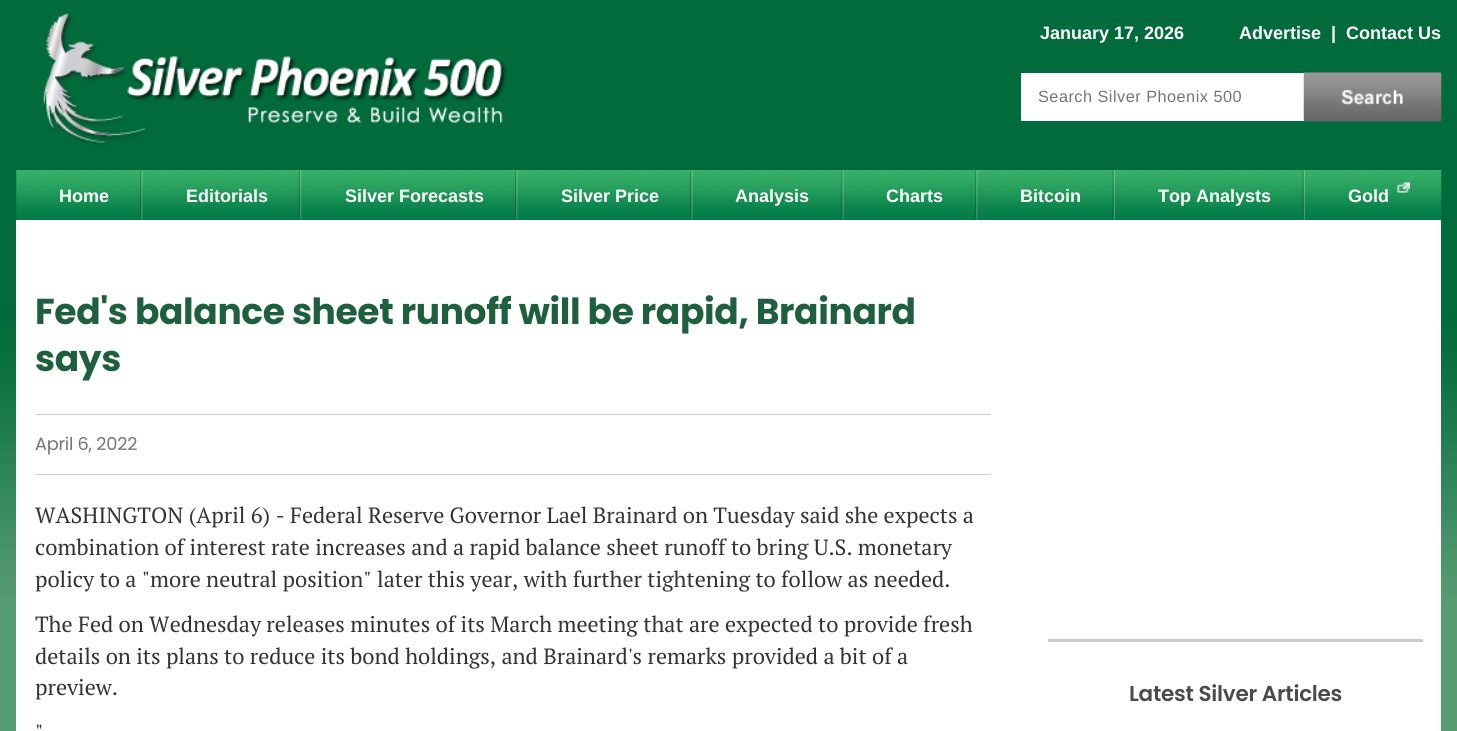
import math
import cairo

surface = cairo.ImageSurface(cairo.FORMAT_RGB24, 1457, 731)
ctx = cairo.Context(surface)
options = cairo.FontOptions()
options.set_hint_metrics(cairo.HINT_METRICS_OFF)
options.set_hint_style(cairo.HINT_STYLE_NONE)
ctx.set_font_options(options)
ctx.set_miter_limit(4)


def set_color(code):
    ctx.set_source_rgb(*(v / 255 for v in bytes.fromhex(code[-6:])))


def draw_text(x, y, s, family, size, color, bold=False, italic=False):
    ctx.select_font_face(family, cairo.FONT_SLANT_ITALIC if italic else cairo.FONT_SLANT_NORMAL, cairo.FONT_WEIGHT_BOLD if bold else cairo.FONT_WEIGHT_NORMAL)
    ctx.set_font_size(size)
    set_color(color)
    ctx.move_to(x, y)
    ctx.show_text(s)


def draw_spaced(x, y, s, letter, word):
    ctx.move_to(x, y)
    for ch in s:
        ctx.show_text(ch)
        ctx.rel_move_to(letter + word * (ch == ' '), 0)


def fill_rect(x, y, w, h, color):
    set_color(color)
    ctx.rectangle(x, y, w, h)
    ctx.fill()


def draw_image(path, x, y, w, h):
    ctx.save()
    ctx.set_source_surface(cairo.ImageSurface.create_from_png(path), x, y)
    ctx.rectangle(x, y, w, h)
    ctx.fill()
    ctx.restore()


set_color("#589c74")
ctx.paint()
draw_image("assets/img1.png", 0, 0, 1457, 598)
draw_image("assets/img2.png", 43, 13, 464, 133)
draw_text(1040, 39, "January 17, 2026", "Liberation Sans", 18, "#ffffff", bold=True)
draw_text(1239, 39, "Advertise", "Liberation Sans", 18, "#ffffff", bold=True)
draw_text(1331, 39, "|", "Liberation Sans", 18, "#ffffff", bold=True)
draw_text(1346, 39, "Contact Us", "Liberation Sans", 18, "#ffffff", bold=True)
fill_rect(1021, 73, 283, 48, "#ffffff")
ctx.select_font_face("Liberation Sans")
ctx.set_font_size(16.25)
set_color("#757575")
draw_spaced(1038, 102, "Search Silver Phoenix 500", 0.5, 0)
draw_image("assets/img3.png", 1303, 72, 139, 50)
draw_image("assets/img4.png", 16, 170, 1426, 50)
draw_image("assets/img5.png", 140, 170, 3, 50)
draw_text(59, 202, "Home", "Liberation Sans", 18, "#ffffff", bold=True)
draw_image("assets/img6.png", 298, 170, 4, 50)
draw_text(186, 202, "Editorials", "Liberation Sans", 18, "#ffffff", bold=True)
draw_image("assets/img5.png", 515, 170, 3, 50)
draw_text(345, 202, "Silver Forecasts", "Liberation Sans", 18, "#ffffff", bold=True)
draw_image("assets/img7.png", 690, 170, 3, 50)
draw_text(561, 202, "Silver Price", "Liberation Sans", 18, "#ffffff", bold=True)
draw_image("assets/img8.png", 841, 170, 3, 50)
draw_text(735, 202, "Analysis", "Liberation Sans", 18, "#ffffff", bold=True)
draw_image("assets/img7.png", 975, 170, 3, 50)
draw_text(886, 202, "Charts", "Liberation Sans", 18, "#ffffff", bold=True)
draw_image("assets/img9.png", 1112, 170, 3, 50)
draw_text(1020, 202, "Bitcoin", "Liberation Sans", 18, "#ffffff", bold=True)
draw_image("assets/img10.png", 1302, 170, 3, 50)
draw_text(1158, 202, "Top Analysts", "Liberation Sans", 18, "#ffffff", bold=True)
draw_image("assets/img11.png", 1397, 182, 13, 11)
draw_text(1348, 202, "Gold", "Liberation Sans", 18, "#ffffff", bold=True)
fill_rect(16, 220, 1425, 511, "#ffffff")
ctx.select_font_face("Poppins", cairo.FONT_SLANT_NORMAL, cairo.FONT_WEIGHT_BOLD)
ctx.set_font_size(36)
set_color("#1e5f3e")
draw_spaced(35, 324, "Fed's balance sheet runoff will be rapid, Brainard", -0.35, 0)
draw_spaced(35, 371, "says", -0.35, 0)
fill_rect(35, 414, 956, 1, "#cdcdcd")
fill_rect(35, 474, 956, 1, "#cdcdcd")
ctx.select_font_face("Poppins")
ctx.set_font_size(17.75)
set_color("#757575")
draw_spaced(35, 450, "April 6, 2022", -0.25, 0)
draw_text(35, 523, "WASHINGTON (April 6) - Federal Reserve Governor Lael Brainard on Tuesday said she expects a", "PT Serif", 22, "#333333")
draw_text(35, 555, "combination of interest rate increases and a rapid balance sheet runoff to bring U.S. monetary", "PT Serif", 22, "#333333")
draw_text(35, 587, "policy to a \"more neutral position\" later this year, with further tightening to follow as needed.", "PT Serif", 22, "#333333")
draw_text(35, 632, "The Fed on Wednesday releases minutes of its March meeting that are expected to provide fresh", "PT Serif", 22, "#333333")
draw_text(35, 664, "details on its plans to reduce its bond holdings, and Brainard's remarks provided a bit of a", "PT Serif", 22, "#333333")
draw_text(35, 695, "preview.", "PT Serif", 22, "#333333")
draw_text(35, 740, "\"", "PT Serif", 22, "#333333")
fill_rect(1048, 639, 375, 3, "#cccccc")
ctx.select_font_face("Poppins SemiBold")
ctx.set_font_size(21.5)
set_color("#4a4a4a")
draw_spaced(1129, 701, "Latest Silver Articles", -0.25, 0)
surface.write_to_png("output.png")
